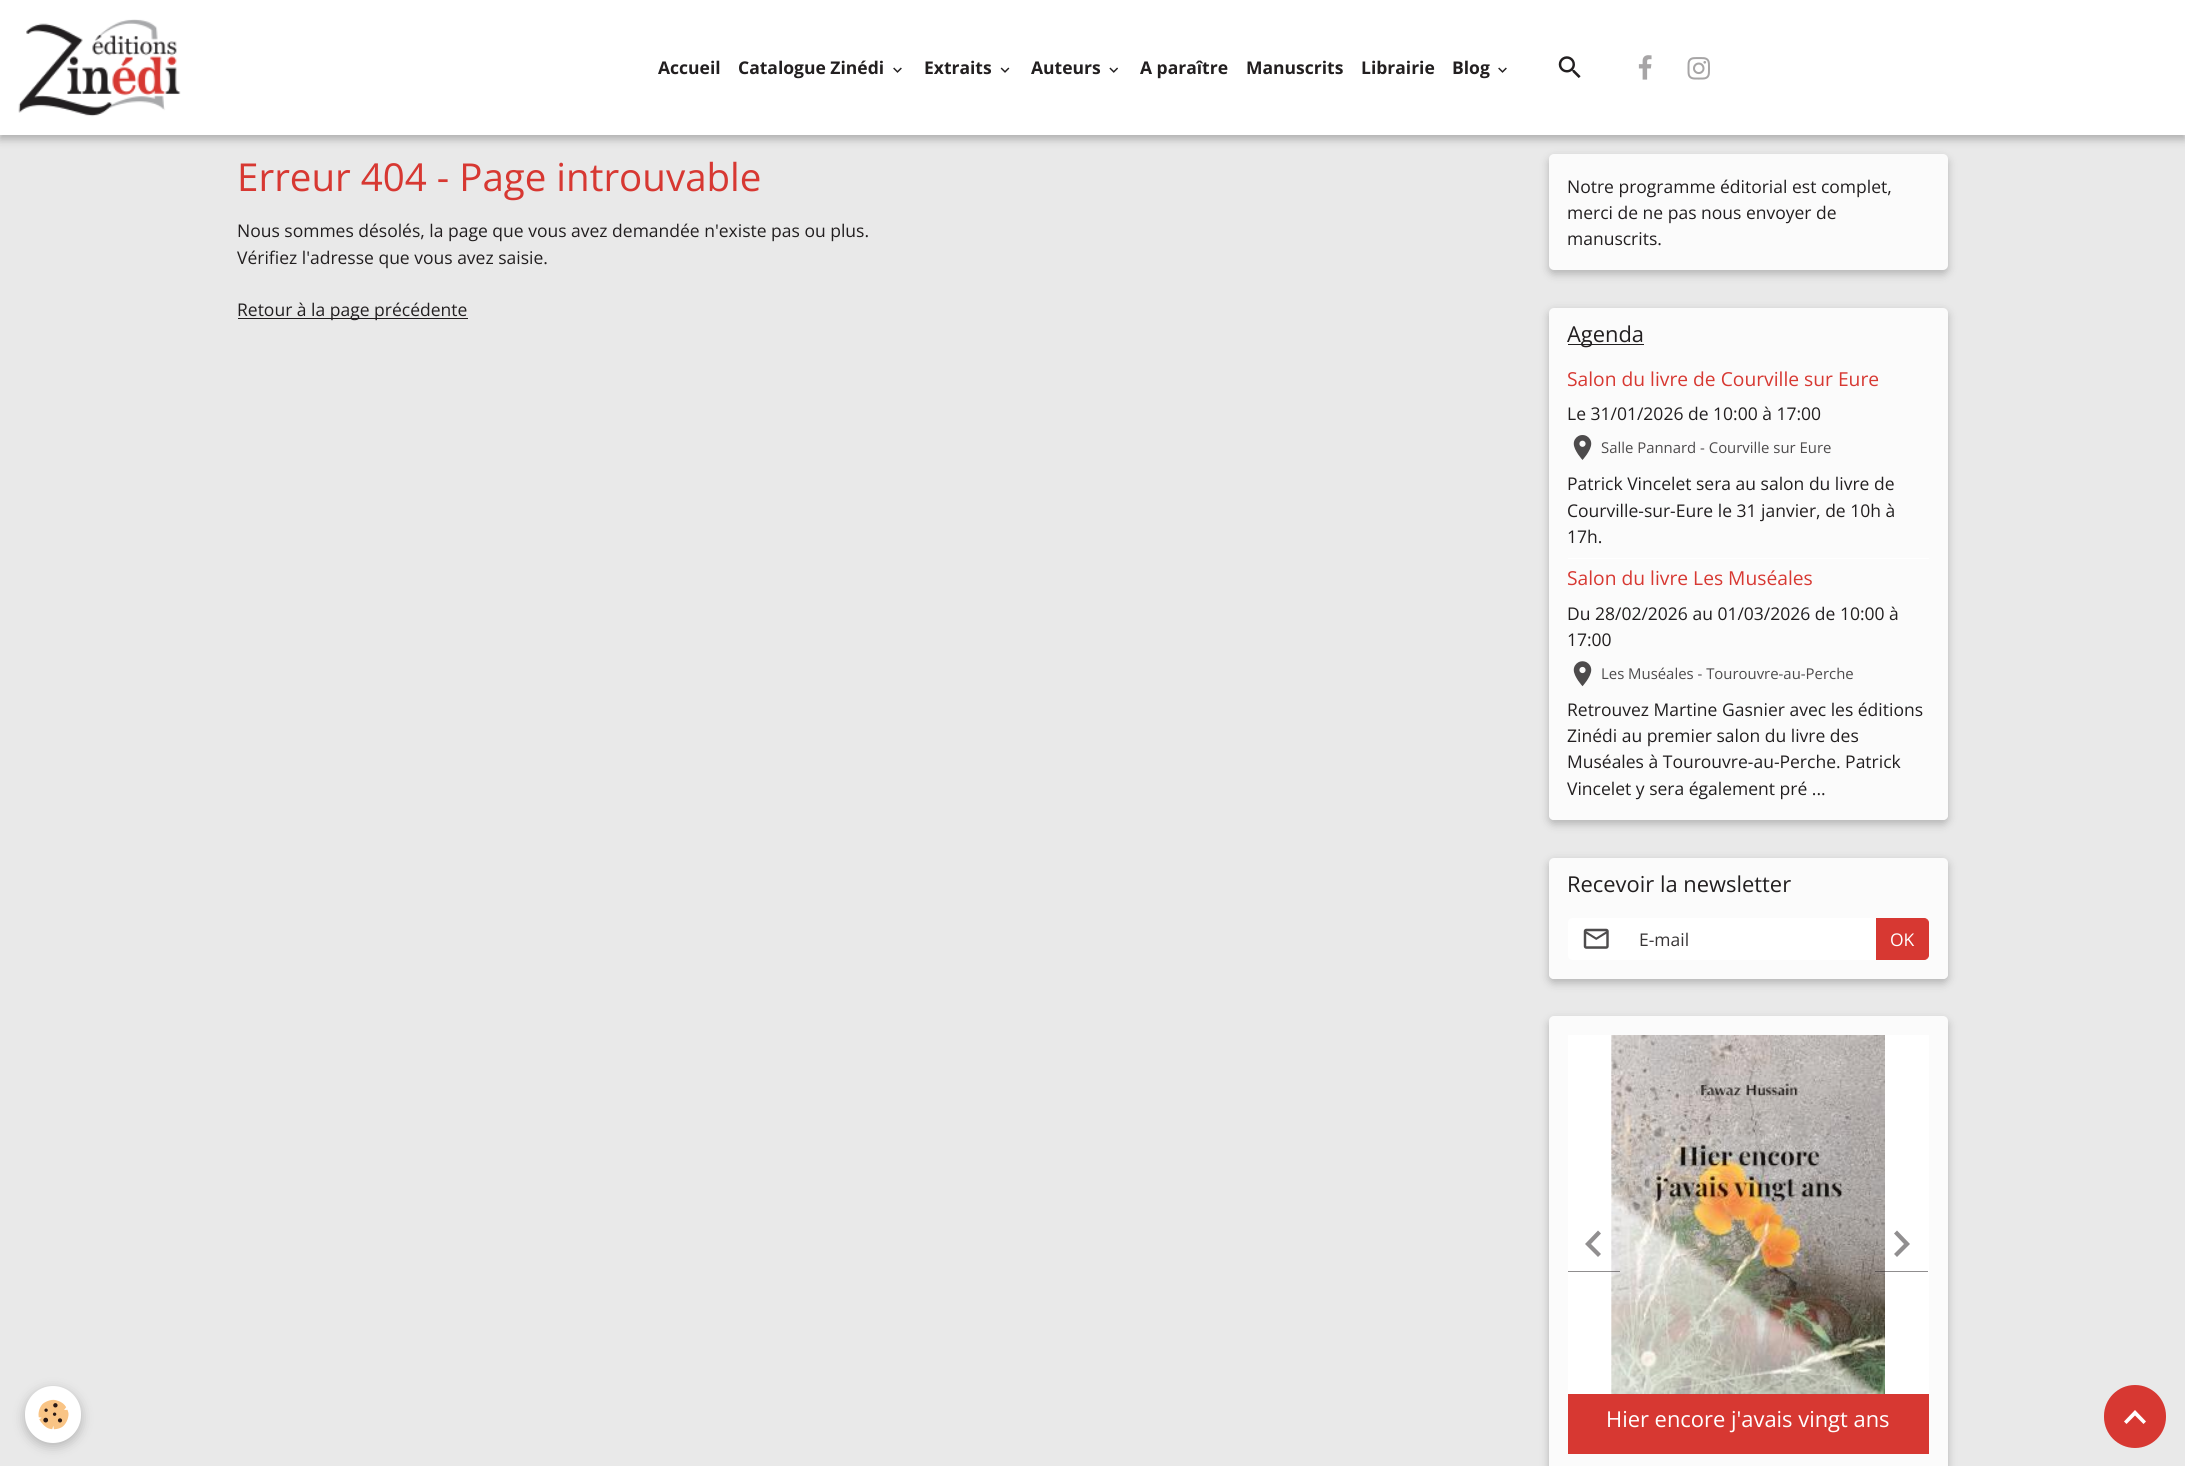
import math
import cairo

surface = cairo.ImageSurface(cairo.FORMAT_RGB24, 2185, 1466)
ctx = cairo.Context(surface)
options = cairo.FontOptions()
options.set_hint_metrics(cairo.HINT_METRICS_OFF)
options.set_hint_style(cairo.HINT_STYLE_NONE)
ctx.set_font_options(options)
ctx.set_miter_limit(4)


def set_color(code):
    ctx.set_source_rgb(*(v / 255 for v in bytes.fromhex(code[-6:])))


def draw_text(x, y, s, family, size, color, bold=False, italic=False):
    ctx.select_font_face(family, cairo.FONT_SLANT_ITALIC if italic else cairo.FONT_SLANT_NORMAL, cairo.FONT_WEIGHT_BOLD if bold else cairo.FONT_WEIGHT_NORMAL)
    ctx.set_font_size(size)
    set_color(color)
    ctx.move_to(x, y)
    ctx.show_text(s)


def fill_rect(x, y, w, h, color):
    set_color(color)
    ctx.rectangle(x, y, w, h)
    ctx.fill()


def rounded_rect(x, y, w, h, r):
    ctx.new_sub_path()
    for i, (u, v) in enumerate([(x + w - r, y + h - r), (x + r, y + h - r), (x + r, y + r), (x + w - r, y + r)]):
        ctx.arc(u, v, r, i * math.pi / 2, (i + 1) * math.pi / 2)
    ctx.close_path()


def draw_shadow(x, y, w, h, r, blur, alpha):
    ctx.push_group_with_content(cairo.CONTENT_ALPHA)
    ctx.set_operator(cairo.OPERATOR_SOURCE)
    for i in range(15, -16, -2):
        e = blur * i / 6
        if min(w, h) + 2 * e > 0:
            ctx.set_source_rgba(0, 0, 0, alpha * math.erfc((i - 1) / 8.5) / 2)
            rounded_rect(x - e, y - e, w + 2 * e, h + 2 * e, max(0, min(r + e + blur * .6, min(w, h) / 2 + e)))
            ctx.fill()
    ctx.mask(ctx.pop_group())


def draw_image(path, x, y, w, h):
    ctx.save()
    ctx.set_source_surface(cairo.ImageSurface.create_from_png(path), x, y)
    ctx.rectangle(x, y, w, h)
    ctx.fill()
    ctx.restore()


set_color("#e9e9e9")
ctx.paint()
set_color("#000000")
draw_shadow(0, 4, 2185, 135, 0, 4.5, 0.27)
fill_rect(0, 0, 2185, 135, "#ffffff")
draw_image("assets/img1.png", 18, 19, 163, 98)
draw_text(658, 74, "Accueil", "Open Sans", 17.5, "#221f20", bold=True)
draw_text(738, 74, "Catalogue Zinédi", "Open Sans", 17.5, "#221f20", bold=True)
draw_image("assets/img2.png", 893, 67, 9, 6)
draw_text(924, 74, "Extraits", "Open Sans", 17.5, "#221f20", bold=True)
draw_image("assets/img3.png", 1000, 67, 10, 6)
draw_text(1031, 74, "Auteurs", "Open Sans", 17.5, "#221f20", bold=True)
draw_image("assets/img4.png", 1109, 67, 9, 6)
draw_text(1140, 74, "A paraître", "Open Sans", 17.5, "#221f20", bold=True)
draw_text(1246, 74, "Manuscrits", "Open Sans", 17.5, "#221f20", bold=True)
draw_text(1361, 74, "Librairie", "Open Sans", 17.5, "#221f20", bold=True)
draw_text(1452, 74, "Blog", "Open Sans", 17.5, "#221f20", bold=True)
draw_image("assets/img2.png", 1498, 67, 9, 6)
draw_image("assets/img5.png", 1558, 56, 23, 22)
draw_image("assets/img6.png", 1638, 55, 14, 25)
draw_image("assets/img7.png", 1687, 57, 23, 23)
set_color("#000000")
draw_shadow(25, 1390, 56, 56, 28, 6, 0.24)
set_color("#ffffff")
rounded_rect(25, 1386, 56, 57, 28)
ctx.fill()
draw_image("assets/img8.png", 38, 1399, 31, 31)
draw_text(237, 191, "Erreur 404 - Page introuvable", "Open Sans", 38.5, "#d73832")
draw_text(237, 237, "Nous sommes désolés, la page que vous avez demandée n'existe pas ou plus.", "Open Sans", 17.5, "#221f20")
draw_text(237, 264, "Vérifiez l'adresse que vous avez saisie.", "Open Sans", 17.5, "#221f20")
fill_rect(238, 318, 230, 1, "#221f20")
draw_text(237, 316, "Retour à la page précédente", "Open Sans", 17.5, "#221f20")
set_color("#000000")
draw_shadow(1549, 158, 399, 116, 5, 4.5, 0.23)
set_color("#fbfbfb")
rounded_rect(1549, 154, 399, 116, 5)
ctx.fill()
draw_text(1567, 193, "Notre programme éditorial est complet,", "Open Sans", 17.5, "#221f20")
draw_text(1567, 219, "merci de ne pas nous envoyer de", "Open Sans", 17.5, "#221f20")
draw_text(1567, 245, "manuscrits.", "Open Sans", 17.5, "#221f20")
set_color("#000000")
draw_shadow(1549, 311, 399, 513, 5, 4.5, 0.23)
set_color("#fbfbfb")
rounded_rect(1549, 308, 399, 512, 5)
ctx.fill()
fill_rect(1568, 344, 76, 1, "#221f20")
draw_text(1567, 342, "Agenda", "Open Sans", 21.9, "#221f20")
set_color("#fbfbfb")
rounded_rect(1549, 350, 399, 470, 5)
ctx.fill()
draw_text(1567, 386, "Salon du livre de Courville sur Eure", "Open Sans", 19.25, "#d73832")
draw_text(1567, 420, "Le 31/01/2026 de 10:00 à 17:00", "Open Sans", 17.5, "#221f20")
draw_image("assets/img9.png", 1573, 435, 19, 25)
draw_text(1601, 453, "Salle Pannard - Courville sur Eure", "Open Sans", 14.9, "#4d4b4c")
draw_text(1567, 490, "Patrick Vincelet sera au salon du livre de", "Open Sans", 17.5, "#221f20")
draw_text(1567, 517, "Courville-sur-Eure le 31 janvier, de 10h à", "Open Sans", 17.5, "#221f20")
draw_text(1567, 543, "17h.", "Open Sans", 17.5, "#221f20")
fill_rect(1568, 558, 361, 1, "#ffffff")
draw_text(1567, 585, "Salon du livre Les Muséales", "Open Sans", 19.25, "#d73832")
draw_text(1567, 620, "Du 28/02/2026 au 01/03/2026 de 10:00 à", "Open Sans", 17.5, "#221f20")
draw_text(1567, 646, "17:00", "Open Sans", 17.5, "#221f20")
draw_image("assets/img10.png", 1573, 661, 19, 26)
draw_text(1601, 679, "Les Muséales - Tourouvre-au-Perche", "Open Sans", 14.9, "#4d4b4c")
draw_text(1567, 716, "Retrouvez Martine Gasnier avec les éditions", "Open Sans", 17.5, "#221f20")
draw_text(1567, 742, "Zinédi au premier salon du livre des", "Open Sans", 17.5, "#221f20")
draw_text(1567, 768, "Muséales à Tourouvre-au-Perche. Patrick", "Open Sans", 17.5, "#221f20")
draw_text(1567, 795, "Vincelet y sera également pré ...", "Open Sans", 17.5, "#221f20")
set_color("#000000")
draw_shadow(1549, 861, 399, 122, 5, 4.5, 0.23)
set_color("#fbfbfb")
rounded_rect(1549, 858, 399, 121, 5)
ctx.fill()
draw_text(1567, 892, "Recevoir la newsletter", "Open Sans", 21.9, "#221f20")
set_color("#fbfbfb")
rounded_rect(1549, 899, 399, 80, 5)
ctx.fill()
set_color("#ffffff")
ctx.new_path()
ctx.move_to(1573, 918)
ctx.line_to(1626, 918)
ctx.line_to(1626, 960)
ctx.line_to(1573, 960)
ctx.curve_to(1570, 960, 1568, 958, 1568, 955)
ctx.line_to(1568, 923)
ctx.curve_to(1568, 920, 1570, 918, 1573, 918)
ctx.close_path()
ctx.fill()
draw_image("assets/img11.png", 1583, 928, 26, 21)
fill_rect(1626, 919, 250, 40, "#ffffff")
ctx.rectangle(1625.5, 918.5, 252, 41)
ctx.set_line_width(1)
ctx.stroke()
draw_text(1639, 946, "E-mail", "Open Sans", 17.5, "#383536")
set_color("#d73832")
ctx.new_path()
ctx.move_to(1876.5, 918.5)
ctx.line_to(1924, 918.5)
ctx.curve_to(1926.5, 918.5, 1928.5, 920.5, 1928.5, 923)
ctx.line_to(1928.5, 955)
ctx.curve_to(1928.5, 957.5, 1926.5, 959.5, 1924, 959.5)
ctx.line_to(1876.5, 959.5)
ctx.close_path()
ctx.fill_preserve()
ctx.stroke()
draw_text(1890, 946, "OK", "Open Sans", 17.5, "#ffffff")
set_color("#000000")
draw_shadow(1549, 1020, 399, 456, 5, 4.5, 0.23)
set_color("#fbfbfb")
rounded_rect(1549, 1016, 399, 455, 5)
ctx.fill()
fill_rect(1568, 1035, 361, 359, "#ffffff")
set_color("#918f90")
ctx.new_path()
ctx.move_to(1601, 1233.5)
ctx.line_to(1591, 1244)
ctx.line_to(1601, 1254)
ctx.line_to(1598, 1257)
ctx.line_to(1585, 1244)
ctx.line_to(1598, 1230.5)
ctx.close_path()
ctx.fill()
draw_image("assets/img12.png", 1611, 1035, 274, 359)
ctx.set_source_rgba(0.133, 0.122, 0.125, 0.5)
ctx.rectangle(1568, 1271, 52, 1)
ctx.fill()
set_color("#918f90")
ctx.new_path()
ctx.move_to(1897, 1230.5)
ctx.line_to(1910, 1244)
ctx.line_to(1897, 1257)
ctx.line_to(1894, 1254)
ctx.line_to(1904, 1244)
ctx.line_to(1894, 1233.5)
ctx.close_path()
ctx.fill()
ctx.set_source_rgba(0.133, 0.122, 0.125, 0.5)
ctx.rectangle(1875, 1271, 53, 1)
ctx.fill()
fill_rect(1568, 1394, 361, 60, "#d73832")
draw_text(1606, 1427, "Hier encore j'avais vingt ans", "Open Sans", 21.9, "#ffffff")
set_color("#d73832")
rounded_rect(2104, 1385, 62, 63, 31)
ctx.fill()
set_color("#ffffff")
ctx.new_path()
ctx.move_to(2135, 1410)
ctx.line_to(2146, 1421.5)
ctx.line_to(2143.5, 1424)
ctx.line_to(2135, 1415.5)
ctx.line_to(2126.5, 1424)
ctx.line_to(2124, 1421.5)
ctx.close_path()
ctx.fill()
surface.write_to_png("output.png")
